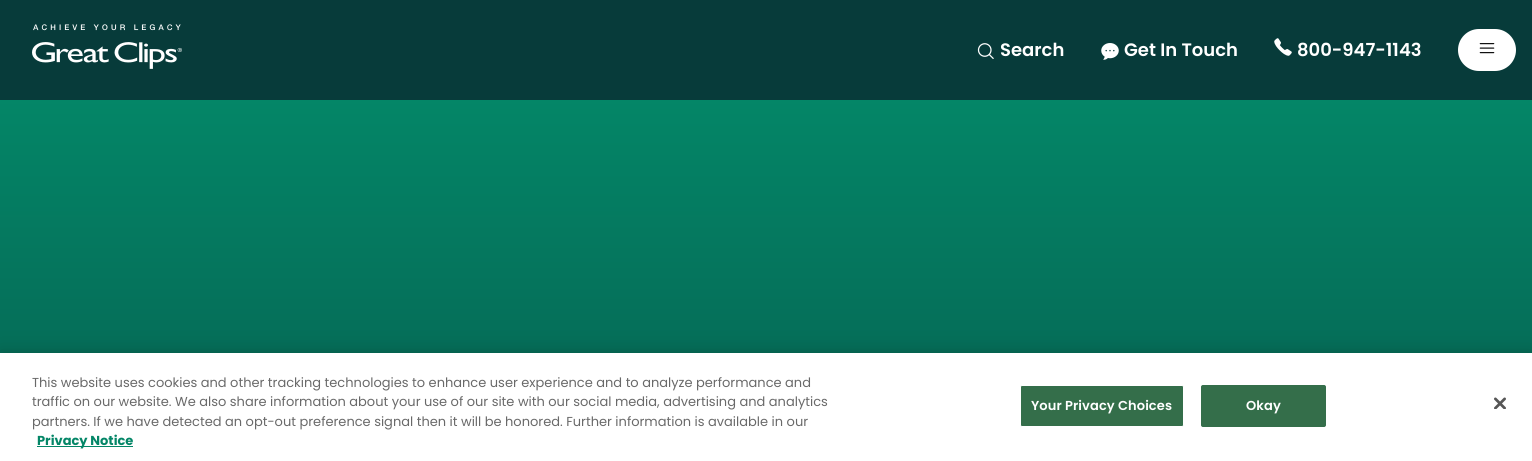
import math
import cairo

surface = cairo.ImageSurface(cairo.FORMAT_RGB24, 1532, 461)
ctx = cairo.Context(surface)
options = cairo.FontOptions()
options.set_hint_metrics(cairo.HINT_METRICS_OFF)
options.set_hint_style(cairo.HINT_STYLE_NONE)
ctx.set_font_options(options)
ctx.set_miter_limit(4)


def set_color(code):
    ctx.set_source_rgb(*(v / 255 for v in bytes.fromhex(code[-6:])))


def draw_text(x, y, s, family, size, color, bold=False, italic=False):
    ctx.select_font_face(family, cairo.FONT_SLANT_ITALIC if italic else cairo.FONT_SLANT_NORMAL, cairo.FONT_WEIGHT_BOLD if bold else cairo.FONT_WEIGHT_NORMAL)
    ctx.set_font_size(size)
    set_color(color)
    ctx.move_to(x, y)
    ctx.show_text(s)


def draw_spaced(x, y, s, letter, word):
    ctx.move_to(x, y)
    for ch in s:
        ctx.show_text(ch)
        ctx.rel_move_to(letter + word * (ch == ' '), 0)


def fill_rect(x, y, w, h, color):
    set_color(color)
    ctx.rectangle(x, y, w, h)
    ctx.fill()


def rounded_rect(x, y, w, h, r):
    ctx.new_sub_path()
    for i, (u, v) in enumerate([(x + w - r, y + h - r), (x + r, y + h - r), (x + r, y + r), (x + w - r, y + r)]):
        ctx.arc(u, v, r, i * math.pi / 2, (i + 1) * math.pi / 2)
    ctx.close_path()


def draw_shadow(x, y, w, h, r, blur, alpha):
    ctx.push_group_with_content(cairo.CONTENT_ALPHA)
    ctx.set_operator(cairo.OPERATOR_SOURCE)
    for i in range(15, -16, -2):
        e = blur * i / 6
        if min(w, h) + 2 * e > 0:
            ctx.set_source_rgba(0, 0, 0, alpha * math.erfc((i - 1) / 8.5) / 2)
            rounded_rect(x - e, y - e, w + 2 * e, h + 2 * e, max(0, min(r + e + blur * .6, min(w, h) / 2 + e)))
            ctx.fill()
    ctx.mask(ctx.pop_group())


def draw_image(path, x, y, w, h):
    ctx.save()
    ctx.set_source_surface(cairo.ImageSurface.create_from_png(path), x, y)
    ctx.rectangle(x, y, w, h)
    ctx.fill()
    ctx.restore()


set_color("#ffffff")
ctx.paint()
fill_rect(0, 0, 1532, 100, "#073b3a")
draw_image("assets/img1.png", 32, 24, 150, 45)
draw_image("assets/img2.png", 977, 43, 17, 16)
draw_text(1000, 56, "Search", "Poppins SemiBold", 18, "#ffffff")
draw_image("assets/img3.png", 1101, 43, 18, 17)
draw_text(1124, 56, "Get In Touch", "Poppins SemiBold", 18, "#ffffff")
draw_image("assets/img4.png", 1274, 38, 18, 18)
draw_text(1297, 56, "800-947-1143", "Poppins SemiBold", 18, "#ffffff")
rounded_rect(1458, 29, 58, 42, 21)
ctx.fill()
draw_image("assets/img5.png", 1479, 43, 16, 11)
gradient = cairo.LinearGradient(766, 100, 766, 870)
gradient.add_color_stop_rgba(0, 0.016, 0.525, 0.404, 1)
gradient.add_color_stop_rgba(1, 0.027, 0.231, 0.227, 1)
ctx.set_source(gradient)
ctx.rectangle(0, 100, 1532, 253)
ctx.fill()
set_color("#000000")
draw_shadow(0, 353, 1532, 108, 0, 9, 0.2)
fill_rect(0, 353, 1532, 108, "#ffffff")
draw_text(32, 387, "This website uses cookies and other tracking technologies to enhance user experience and to analyze performance and", "Poppins", 13, "#696969")
draw_text(32, 406, "traffic on our website. We also share information about your use of our site with our social media, advertising and analytics", "Poppins", 13, "#696969")
draw_text(32, 426, "partners. If we have detected an opt-out preference signal then it will be honored. Further information is available in our", "Poppins", 13, "#696969")
fill_rect(37, 446, 96, 1, "#048667")
draw_text(37, 445, "Privacy Notice", "Poppins", 13, "#048667", bold=True)
set_color("#346e4a")
rounded_rect(1020.5, 385.5, 163, 41, 1.5)
ctx.fill_preserve()
set_color("#ffffff")
ctx.set_line_width(1)
ctx.stroke()
ctx.select_font_face("Poppins SemiBold")
draw_spaced(1031, 410, "Your Privacy Choices", 0.1, 0)
set_color("#346e4a")
rounded_rect(1201.5, 385.5, 124, 41, 1.5)
ctx.fill_preserve()
ctx.stroke()
set_color("#ffffff")
draw_spaced(1246, 410, "Okay", 0.1, 0)
draw_image("assets/img6.png", 1494, 397, 12, 12)
surface.write_to_png("output.png")
